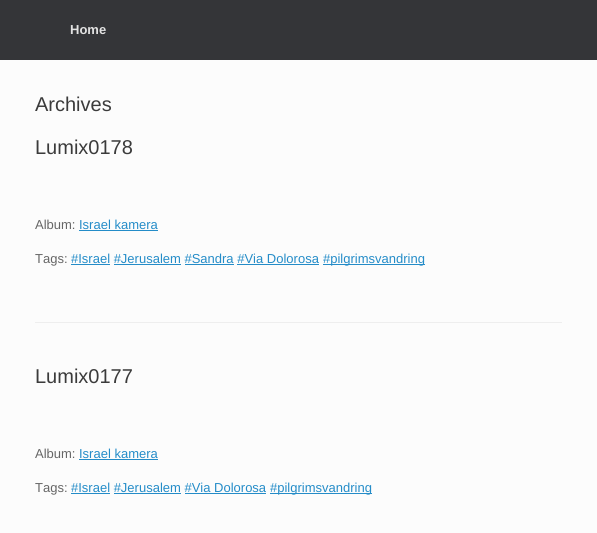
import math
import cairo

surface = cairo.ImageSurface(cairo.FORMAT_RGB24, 597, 533)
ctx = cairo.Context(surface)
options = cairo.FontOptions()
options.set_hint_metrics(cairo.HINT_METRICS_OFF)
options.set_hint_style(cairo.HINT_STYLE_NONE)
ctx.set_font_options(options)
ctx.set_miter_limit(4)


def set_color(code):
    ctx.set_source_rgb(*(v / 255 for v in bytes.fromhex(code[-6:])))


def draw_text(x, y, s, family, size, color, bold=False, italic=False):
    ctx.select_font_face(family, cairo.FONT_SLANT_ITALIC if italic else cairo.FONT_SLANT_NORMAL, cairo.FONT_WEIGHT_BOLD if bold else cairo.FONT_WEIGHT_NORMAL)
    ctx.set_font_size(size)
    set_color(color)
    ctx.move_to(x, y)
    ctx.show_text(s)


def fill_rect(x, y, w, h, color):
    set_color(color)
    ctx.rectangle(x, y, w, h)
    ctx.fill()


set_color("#fcfcfc")
ctx.paint()
fill_rect(0, 0, 597, 60, "#343538")
draw_text(70, 34, "Home", "Liberation Sans", 13, "#e2e2e2", bold=True)
draw_text(35, 111, "Archives", "Liberation Sans", 20, "#3b3b3b")
fill_rect(35, 322, 527, 1, "#eeeeee")
draw_text(35, 154, "Lumix0178", "Liberation Sans", 20, "#3b3b3b")
draw_text(35, 229, "Album:", "Liberation Sans", 13, "#666666")
draw_text(79, 229, "Israel kamera", "Liberation Sans", 13, "#248cc8")
fill_rect(79, 230, 79, 1, "#248cc8")
draw_text(35, 263, "Tags:", "Liberation Sans", 13, "#666666")
draw_text(71, 263, "#Israel #Jerusalem #Sandra #Via Dolorosa", "Liberation Sans", 13, "#248cc8")
fill_rect(71, 264, 39, 1, "#248cc8")
fill_rect(114, 264, 67, 1, "#248cc8")
fill_rect(185, 264, 49, 1, "#248cc8")
fill_rect(237, 264, 82, 1, "#248cc8")
fill_rect(323, 264, 102, 1, "#248cc8")
draw_text(323, 263, "#pilgrimsvandring", "Liberation Sans", 13, "#248cc8")
draw_text(35, 383, "Lumix0177", "Liberation Sans", 20, "#3b3b3b")
draw_text(35, 458, "Album:", "Liberation Sans", 13, "#666666")
draw_text(79, 458, "Israel kamera", "Liberation Sans", 13, "#248cc8")
fill_rect(79, 459, 79, 1, "#248cc8")
draw_text(35, 492, "Tags:", "Liberation Sans", 13, "#666666")
draw_text(71, 492, "#Israel #Jerusalem #Via Dolorosa", "Liberation Sans", 13, "#248cc8")
fill_rect(71, 493, 39, 1, "#248cc8")
fill_rect(114, 493, 67, 1, "#248cc8")
fill_rect(185, 493, 81, 1, "#248cc8")
fill_rect(270, 493, 102, 1, "#248cc8")
draw_text(270, 492, "#pilgrimsvandring", "Liberation Sans", 13, "#248cc8")
surface.write_to_png("output.png")
